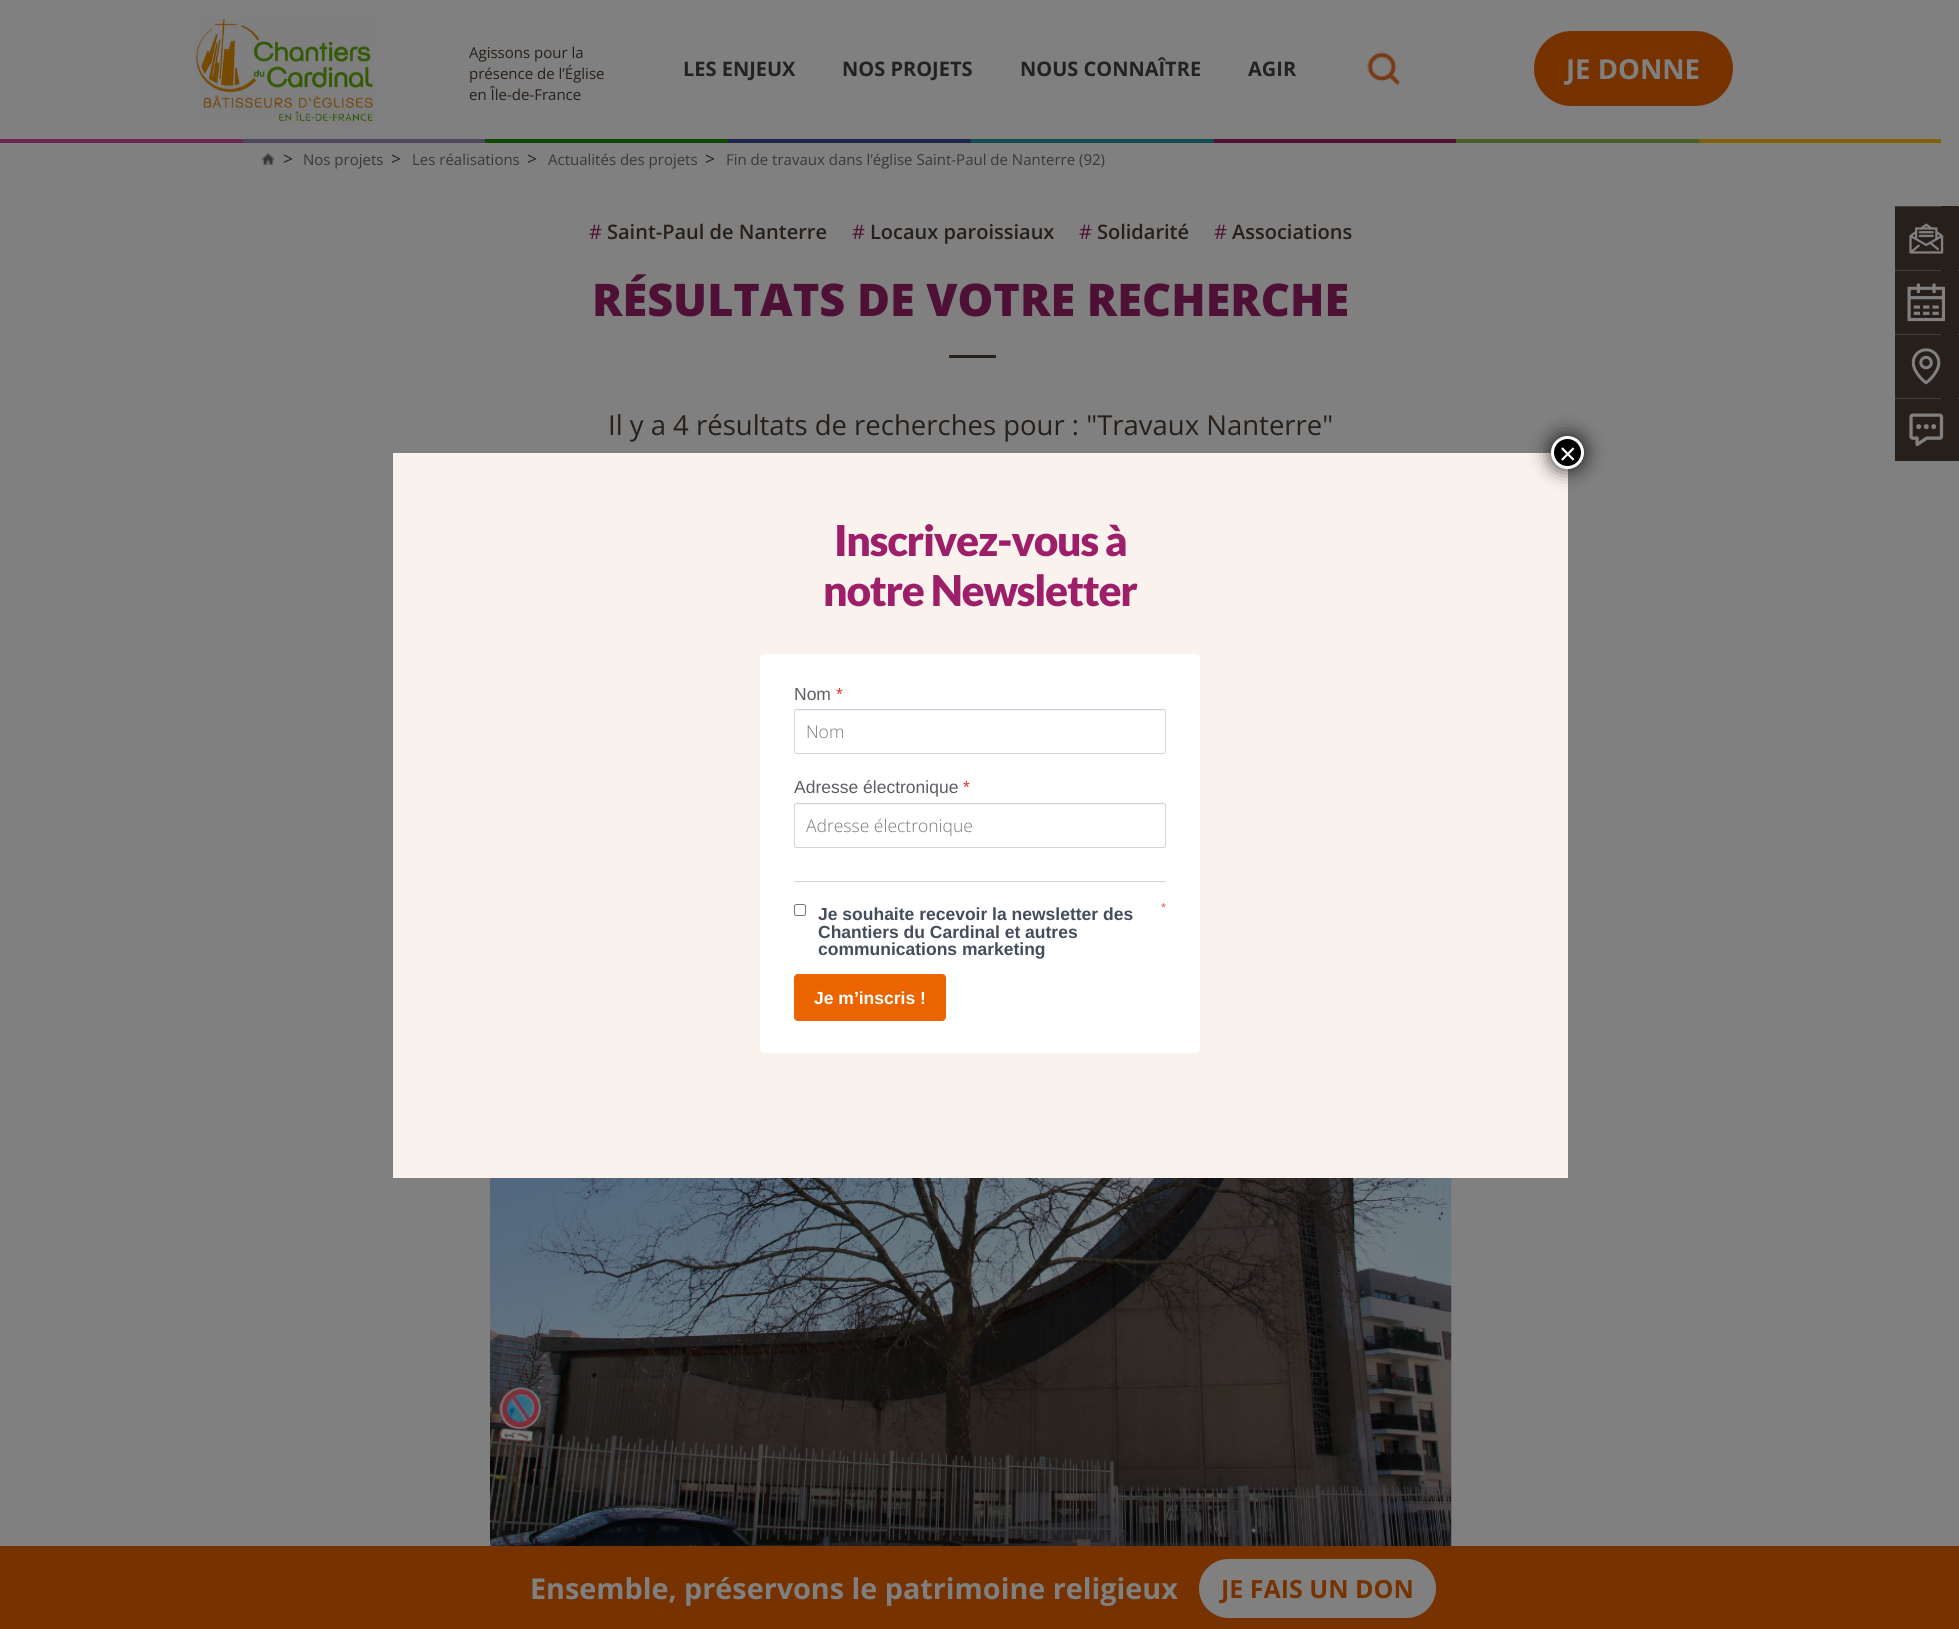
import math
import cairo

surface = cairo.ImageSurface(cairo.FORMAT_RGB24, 1959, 1629)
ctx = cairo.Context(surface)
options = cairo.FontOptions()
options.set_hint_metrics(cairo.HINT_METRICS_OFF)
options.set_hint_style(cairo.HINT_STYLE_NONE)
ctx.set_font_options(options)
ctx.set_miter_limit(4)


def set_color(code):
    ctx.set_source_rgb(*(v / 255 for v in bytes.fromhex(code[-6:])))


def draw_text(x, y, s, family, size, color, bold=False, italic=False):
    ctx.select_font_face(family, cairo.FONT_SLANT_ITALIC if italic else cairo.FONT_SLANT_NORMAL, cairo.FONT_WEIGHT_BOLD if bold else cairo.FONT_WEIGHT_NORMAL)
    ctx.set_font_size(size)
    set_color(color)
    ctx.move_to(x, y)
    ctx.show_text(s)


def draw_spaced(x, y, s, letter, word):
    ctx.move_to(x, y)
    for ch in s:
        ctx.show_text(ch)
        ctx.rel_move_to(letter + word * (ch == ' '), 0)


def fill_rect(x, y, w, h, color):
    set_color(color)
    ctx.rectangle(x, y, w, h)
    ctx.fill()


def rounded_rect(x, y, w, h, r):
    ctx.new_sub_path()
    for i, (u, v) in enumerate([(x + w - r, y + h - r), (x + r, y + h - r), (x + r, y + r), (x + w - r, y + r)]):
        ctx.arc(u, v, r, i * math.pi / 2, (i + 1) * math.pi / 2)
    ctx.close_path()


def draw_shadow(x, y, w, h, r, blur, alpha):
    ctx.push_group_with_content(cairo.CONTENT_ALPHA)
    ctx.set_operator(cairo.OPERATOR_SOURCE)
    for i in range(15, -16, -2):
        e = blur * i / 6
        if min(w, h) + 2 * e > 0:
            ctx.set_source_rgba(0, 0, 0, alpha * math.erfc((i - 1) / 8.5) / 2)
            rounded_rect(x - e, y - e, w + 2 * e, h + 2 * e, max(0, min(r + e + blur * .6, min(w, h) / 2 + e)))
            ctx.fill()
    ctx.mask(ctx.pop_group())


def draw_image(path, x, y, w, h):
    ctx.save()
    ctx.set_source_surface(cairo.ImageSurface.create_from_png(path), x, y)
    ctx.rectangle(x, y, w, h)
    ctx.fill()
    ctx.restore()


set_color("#808080")
ctx.paint()
draw_image("assets/img1.png", 195, 15, 180, 110)
draw_text(469, 58, "Agissons pour la", "Open Sans", 15, "#271f19")
draw_text(469, 79, "présence de l’Église", "Open Sans", 15, "#271f19")
draw_text(469, 100, "en Île-de-France", "Open Sans", 15, "#271f19")
draw_text(683, 76, "LES ENJEUX", "Open Sans", 20, "#222222", bold=True)
draw_text(842, 76, "NOS PROJETS", "Open Sans", 20, "#222222", bold=True)
draw_text(1020, 76, "NOUS CONNAÎTRE", "Open Sans", 20, "#222222", bold=True)
draw_text(1248, 76, "AGIR", "Open Sans", 20, "#222222", bold=True)
draw_image("assets/img2.png", 1367, 52, 34, 34)
set_color("#763200")
rounded_rect(1535.5, 32.5, 196, 72, 36)
ctx.fill_preserve()
ctx.set_line_width(3)
ctx.stroke()
draw_text(1566, 79, "JE DONNE", "Open Sans", 27.5, "#808080", bold=True)
fill_rect(0, 139, 243, 4, "#6c254f")
fill_rect(243, 139, 242, 4, "#4f475f")
fill_rect(485, 139, 243, 4, "#0f4800")
fill_rect(728, 139, 243, 4, "#202650")
fill_rect(971, 139, 243, 4, "#154c52")
fill_rect(1214, 139, 242, 4, "#501035")
fill_rect(1456, 139, 243, 4, "#475e29")
fill_rect(1699, 139, 242, 4, "#806000")
draw_image("assets/img3.png", 261, 153, 14, 12)
draw_text(283, 165, ">", "Open Sans", 17.5, "#222222")
draw_text(303, 165, "Nos projets", "Open Sans", 15, "#383838")
draw_text(391, 165, ">", "Open Sans", 17.5, "#222222")
draw_text(412, 165, "Les réalisations", "Open Sans", 15, "#383838")
draw_text(527, 165, ">", "Open Sans", 17.5, "#222222")
draw_text(548, 165, "Actualités des projets", "Open Sans", 15, "#383838")
draw_text(705, 165, ">", "Open Sans", 17.5, "#222222")
draw_text(726, 165, "Fin de travaux dans l’église Saint-Paul de Nanterre (92)", "Open Sans", 15, "#383838")
draw_text(589, 239, "#", "Open Sans", 20, "#4f1035")
draw_text(607, 239, "Saint-Paul de Nanterre", "Open Sans SemiBold", 20, "#271f19")
draw_text(852, 239, "#", "Open Sans", 20, "#4f1035")
draw_text(870, 239, "Locaux paroissiaux", "Open Sans SemiBold", 20, "#271f19")
draw_text(1079, 239, "#", "Open Sans", 20, "#4f1035")
draw_text(1097, 239, "Solidarité", "Open Sans SemiBold", 20, "#271f19")
draw_text(1214, 239, "#", "Open Sans", 20, "#4f1035")
draw_text(1232, 239, "Associations", "Open Sans SemiBold", 20, "#271f19")
draw_text(592, 316, "RÉSULTATS DE VOTRE RECHERCHE", "Open Sans ExtraBold", 45, "#4f1035")
fill_rect(949, 355, 47, 3, "#271f19")
draw_text(608, 435, "Il y a 4 résultats de recherches pour : \"Travaux Nanterre\"", "Open Sans", 27.5, "#271f19")
fill_rect(1895, 206, 64, 255, "#271f19")
fill_rect(1895, 206, 46, 1, "#443f3b")
draw_image("assets/img4.png", 1909, 223, 35, 31)
fill_rect(1958, 206, 1, 1, "#443f3b")
fill_rect(1895, 270, 46, 1, "#443f3b")
draw_image("assets/img5.png", 1907, 283, 38, 39)
fill_rect(1958, 270, 1, 1, "#443f3b")
fill_rect(1895, 334, 46, 1, "#443f3b")
draw_image("assets/img6.png", 1911, 348, 30, 37)
fill_rect(1958, 334, 1, 1, "#443f3b")
fill_rect(1895, 398, 46, 1, "#443f3b")
draw_image("assets/img7.png", 1909, 413, 35, 34)
fill_rect(1958, 398, 1, 1, "#443f3b")
fill_rect(393, 453, 1175, 725, "#faf2ec")
set_color("#020202")
draw_shadow(1550, 435, 35, 35, 17.5, 9.5, 0.75)
set_color("#000000")
ctx.arc(1567.5, 452.5, 15, 0, 2 * math.pi)
ctx.fill_preserve()
set_color("#ffffff")
ctx.stroke()
draw_text(1559, 464, "×", "Liberation Sans", 30, "#ffffff")
ctx.select_font_face("Lato Black")
ctx.set_font_size(42.5)
set_color("#9d1f69")
draw_spaced(834, 556, "Inscrivez-vous à", -1.25, 0)
draw_spaced(823, 606, "notre Newsletter", -1.25, 0)
set_color("#ffffff")
rounded_rect(760, 654, 440, 399, 4)
ctx.fill()
draw_text(794, 700, "Nom", "Liberation Sans", 17.5, "#5d5d65")
draw_text(836, 700, "*", "Liberation Sans", 17.5, "#dd362a")
rounded_rect(794.5, 709.5, 371, 44, 2)
set_color("#d2d7df")
ctx.set_line_width(1)
ctx.stroke()
ctx.set_source_rgba(0.557, 0.604, 0.678, 0.1)
ctx.new_path()
ctx.move_to(796, 711)
ctx.line_to(1164, 711)
ctx.curve_to(1165, 711, 1166, 712, 1166, 714)
ctx.line_to(1166, 712)
ctx.curve_to(1166, 710, 1165, 709, 1164, 709)
ctx.line_to(796, 709)
ctx.curve_to(795, 709, 794, 710, 794, 712)
ctx.line_to(794, 714)
ctx.curve_to(794, 712, 795, 711, 796, 711)
ctx.close_path()
ctx.fill()
draw_text(806, 738, "Nom", "Open Sans Light", 17.5, "#7c7878")
draw_text(794, 793, "Adresse électronique", "Liberation Sans", 17.5, "#5d5d65")
draw_text(963, 793, "*", "Liberation Sans", 17.5, "#dd362a")
rounded_rect(794.5, 803.5, 371, 44, 2)
set_color("#d2d7df")
ctx.stroke()
ctx.set_source_rgba(0.557, 0.604, 0.678, 0.1)
ctx.new_path()
ctx.move_to(796, 805)
ctx.line_to(1164, 805)
ctx.curve_to(1165, 805, 1166, 806, 1166, 807)
ctx.curve_to(1166, 805, 1166, 803, 1164, 803)
ctx.line_to(796, 803)
ctx.curve_to(794, 803, 794, 805, 794, 807)
ctx.curve_to(794, 806, 795, 805, 796, 805)
ctx.close_path()
ctx.fill()
draw_text(806, 832, "Adresse électronique", "Open Sans Light", 17.5, "#7c7878")
fill_rect(794, 881, 372, 1, "#d2d7df")
draw_text(1161, 910, "*", "Open Sans", 9, "#dd362a")
rounded_rect(794.5, 904.5, 11, 11, 2)
set_color("#767676")
ctx.stroke()
draw_text(818, 920, "Je souhaite recevoir la newsletter des", "Liberation Sans", 17.5, "#434d5d", bold=True)
draw_text(818, 938, "Chantiers du Cardinal et autres", "Liberation Sans", 17.5, "#434d5d", bold=True)
draw_text(818, 955, "communications marketing", "Liberation Sans", 17.5, "#434d5d", bold=True)
set_color("#eb6400")
rounded_rect(794, 974, 152, 47, 4)
ctx.fill()
draw_text(814, 1004, "Je m’inscris !", "Liberation Sans", 17.5, "#ffffff", bold=True)
draw_image("assets/img8.png", 490, 1178, 962, 368)
fill_rect(0, 1546, 1959, 83, "#763200")
draw_text(530, 1599, "Ensemble, préservons le patrimoine religieux", "Open Sans", 28.75, "#808080", bold=True)
rounded_rect(1200.5, 1560.5, 234, 56, 28)
ctx.fill_preserve()
ctx.set_line_width(3)
ctx.stroke()
draw_text(1221, 1598, "JE FAIS UN DON", "Open Sans", 25, "#763200", bold=True)
surface.write_to_png("output.png")
